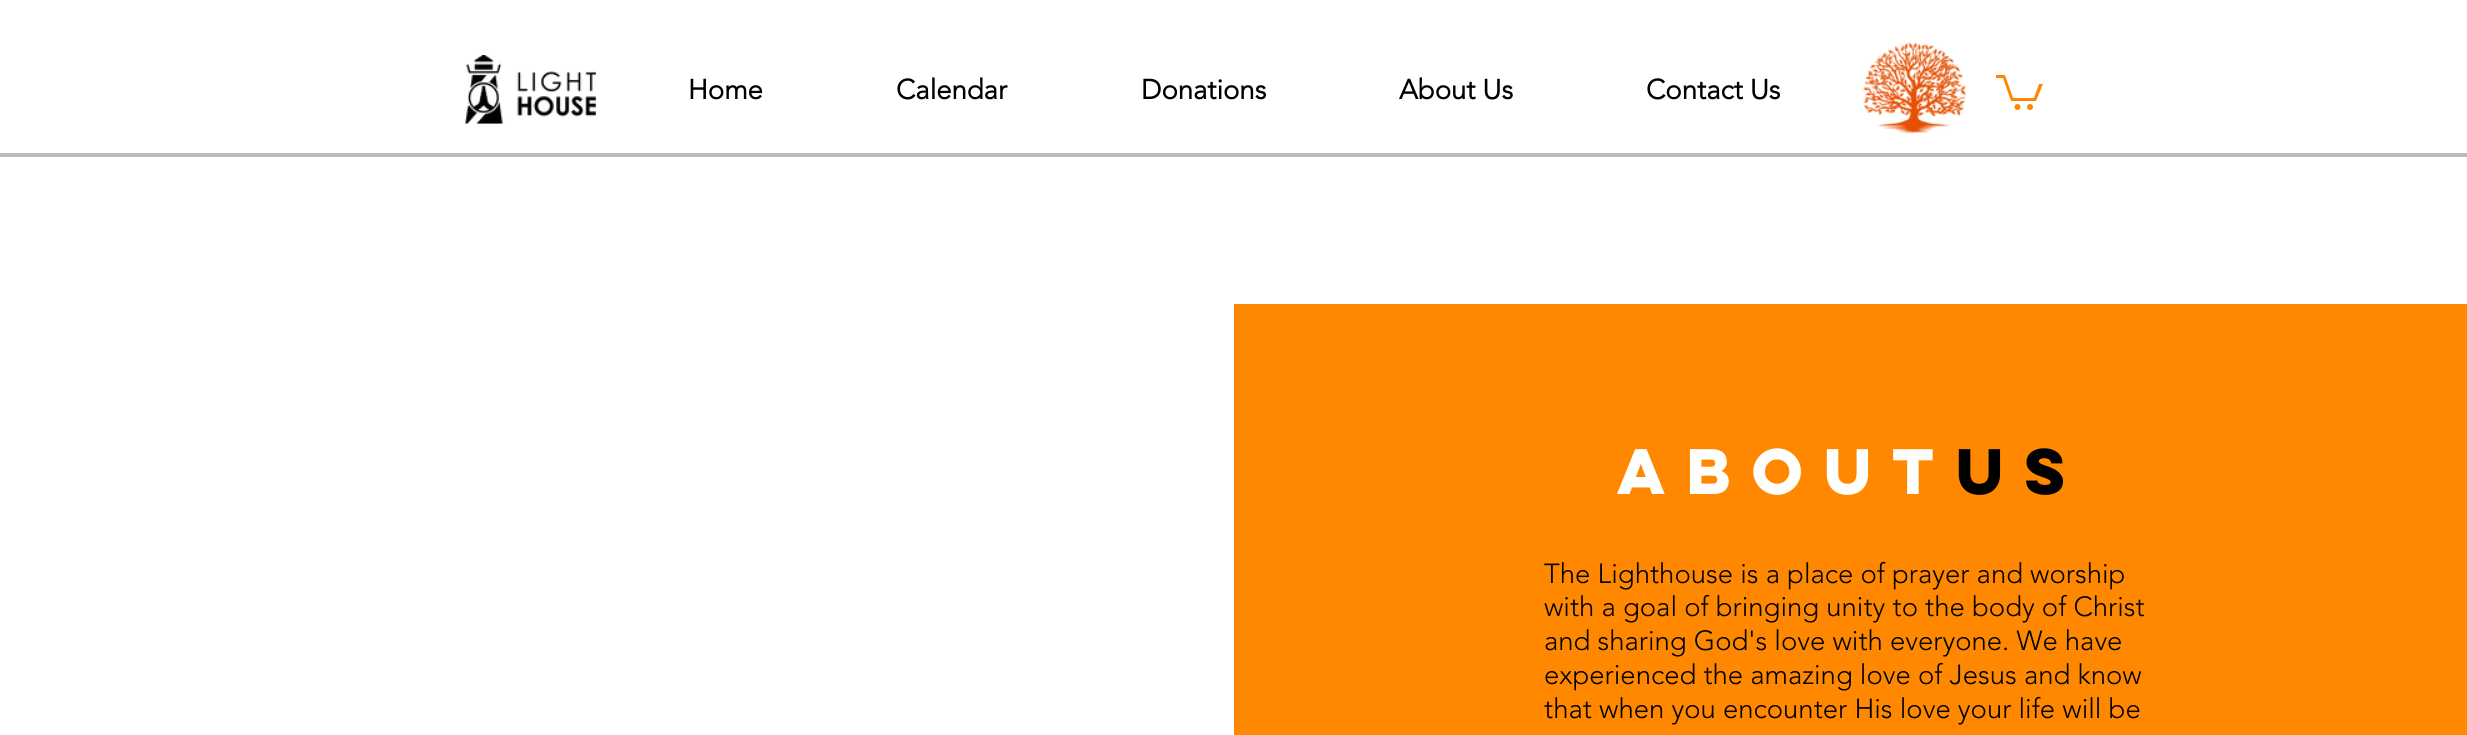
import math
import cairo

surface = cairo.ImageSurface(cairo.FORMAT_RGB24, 2467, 735)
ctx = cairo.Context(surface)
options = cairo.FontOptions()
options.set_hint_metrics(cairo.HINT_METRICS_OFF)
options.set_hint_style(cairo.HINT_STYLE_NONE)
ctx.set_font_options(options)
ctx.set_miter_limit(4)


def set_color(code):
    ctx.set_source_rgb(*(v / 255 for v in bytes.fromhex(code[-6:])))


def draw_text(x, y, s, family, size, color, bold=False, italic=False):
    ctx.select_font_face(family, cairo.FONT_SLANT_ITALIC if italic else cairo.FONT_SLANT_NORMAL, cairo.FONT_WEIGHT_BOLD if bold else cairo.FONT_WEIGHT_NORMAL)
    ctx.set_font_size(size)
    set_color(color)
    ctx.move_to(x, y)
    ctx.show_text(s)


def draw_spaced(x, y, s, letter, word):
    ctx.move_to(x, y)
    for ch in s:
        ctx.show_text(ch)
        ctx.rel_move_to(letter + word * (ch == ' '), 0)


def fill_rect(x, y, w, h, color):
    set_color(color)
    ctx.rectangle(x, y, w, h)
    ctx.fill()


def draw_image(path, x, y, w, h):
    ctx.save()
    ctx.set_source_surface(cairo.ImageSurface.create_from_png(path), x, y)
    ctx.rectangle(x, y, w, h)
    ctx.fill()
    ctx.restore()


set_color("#ffffff")
ctx.paint()
draw_image("assets/img1.png", 465, 55, 132, 69)
draw_text(688, 99, "Home", "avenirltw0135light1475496", 27.5, "#000000", bold=True)
draw_text(896, 99, "Calendar", "avenirltw0135light1475496", 27.5, "#000000", bold=True)
draw_text(1141, 99, "Donations", "avenirltw0135light1475496", 27.5, "#000000", bold=True)
draw_text(1399, 99, "About Us", "avenirltw0135light1475496", 27.5, "#000000", bold=True)
draw_text(1646, 99, "Contact Us", "avenirltw0135light1475496", 27.5, "#000000", bold=True)
draw_image("assets/img2.png", 1863, 42, 104, 92)
set_color("#ff8800")
ctx.new_path()
ctx.move_to(2043, 84)
ctx.line_to(2036, 101)
ctx.line_to(2011, 101)
ctx.line_to(2003, 78)
ctx.line_to(1996, 78)
ctx.line_to(1996, 75)
ctx.line_to(2005, 75)
ctx.line_to(2013, 98)
ctx.line_to(2034, 98)
ctx.line_to(2039, 84)
ctx.fill()
ctx.arc(2030, 107, 3, 0, 2 * math.pi)
ctx.fill()
ctx.arc(2017.5, 107, 3, 0, 2 * math.pi)
ctx.fill()
fill_rect(0, 153, 2467, 4, "#bcbcbc")
fill_rect(1234, 304, 1233, 431, "#ff8800")
ctx.select_font_face("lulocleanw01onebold", cairo.FONT_SLANT_NORMAL, cairo.FONT_WEIGHT_BOLD)
ctx.set_font_size(57.5)
set_color("#ffffff")
draw_spaced(1617, 494, "about", 8.5, 0)
set_color("#000000")
draw_spaced(1956, 494, "us", 8.5, 0)
draw_text(1544, 583, "The Lighthouse is a place of prayer and worship", "avenirltw0135light1475496 Light", 27.5, "#000000")
draw_text(1544, 616, "with a goal of bringing unity to the body of Christ", "avenirltw0135light1475496 Light", 27.5, "#000000")
draw_text(1544, 650, "and sharing God's love with everyone. We have", "avenirltw0135light1475496 Light", 27.5, "#000000")
draw_text(1544, 684, "experienced the amazing love of Jesus and know", "avenirltw0135light1475496 Light", 27.5, "#000000")
draw_text(1544, 718, "that when you encounter His love your life will be", "avenirltw0135light1475496 Light", 27.5, "#000000")
surface.write_to_png("output.png")
